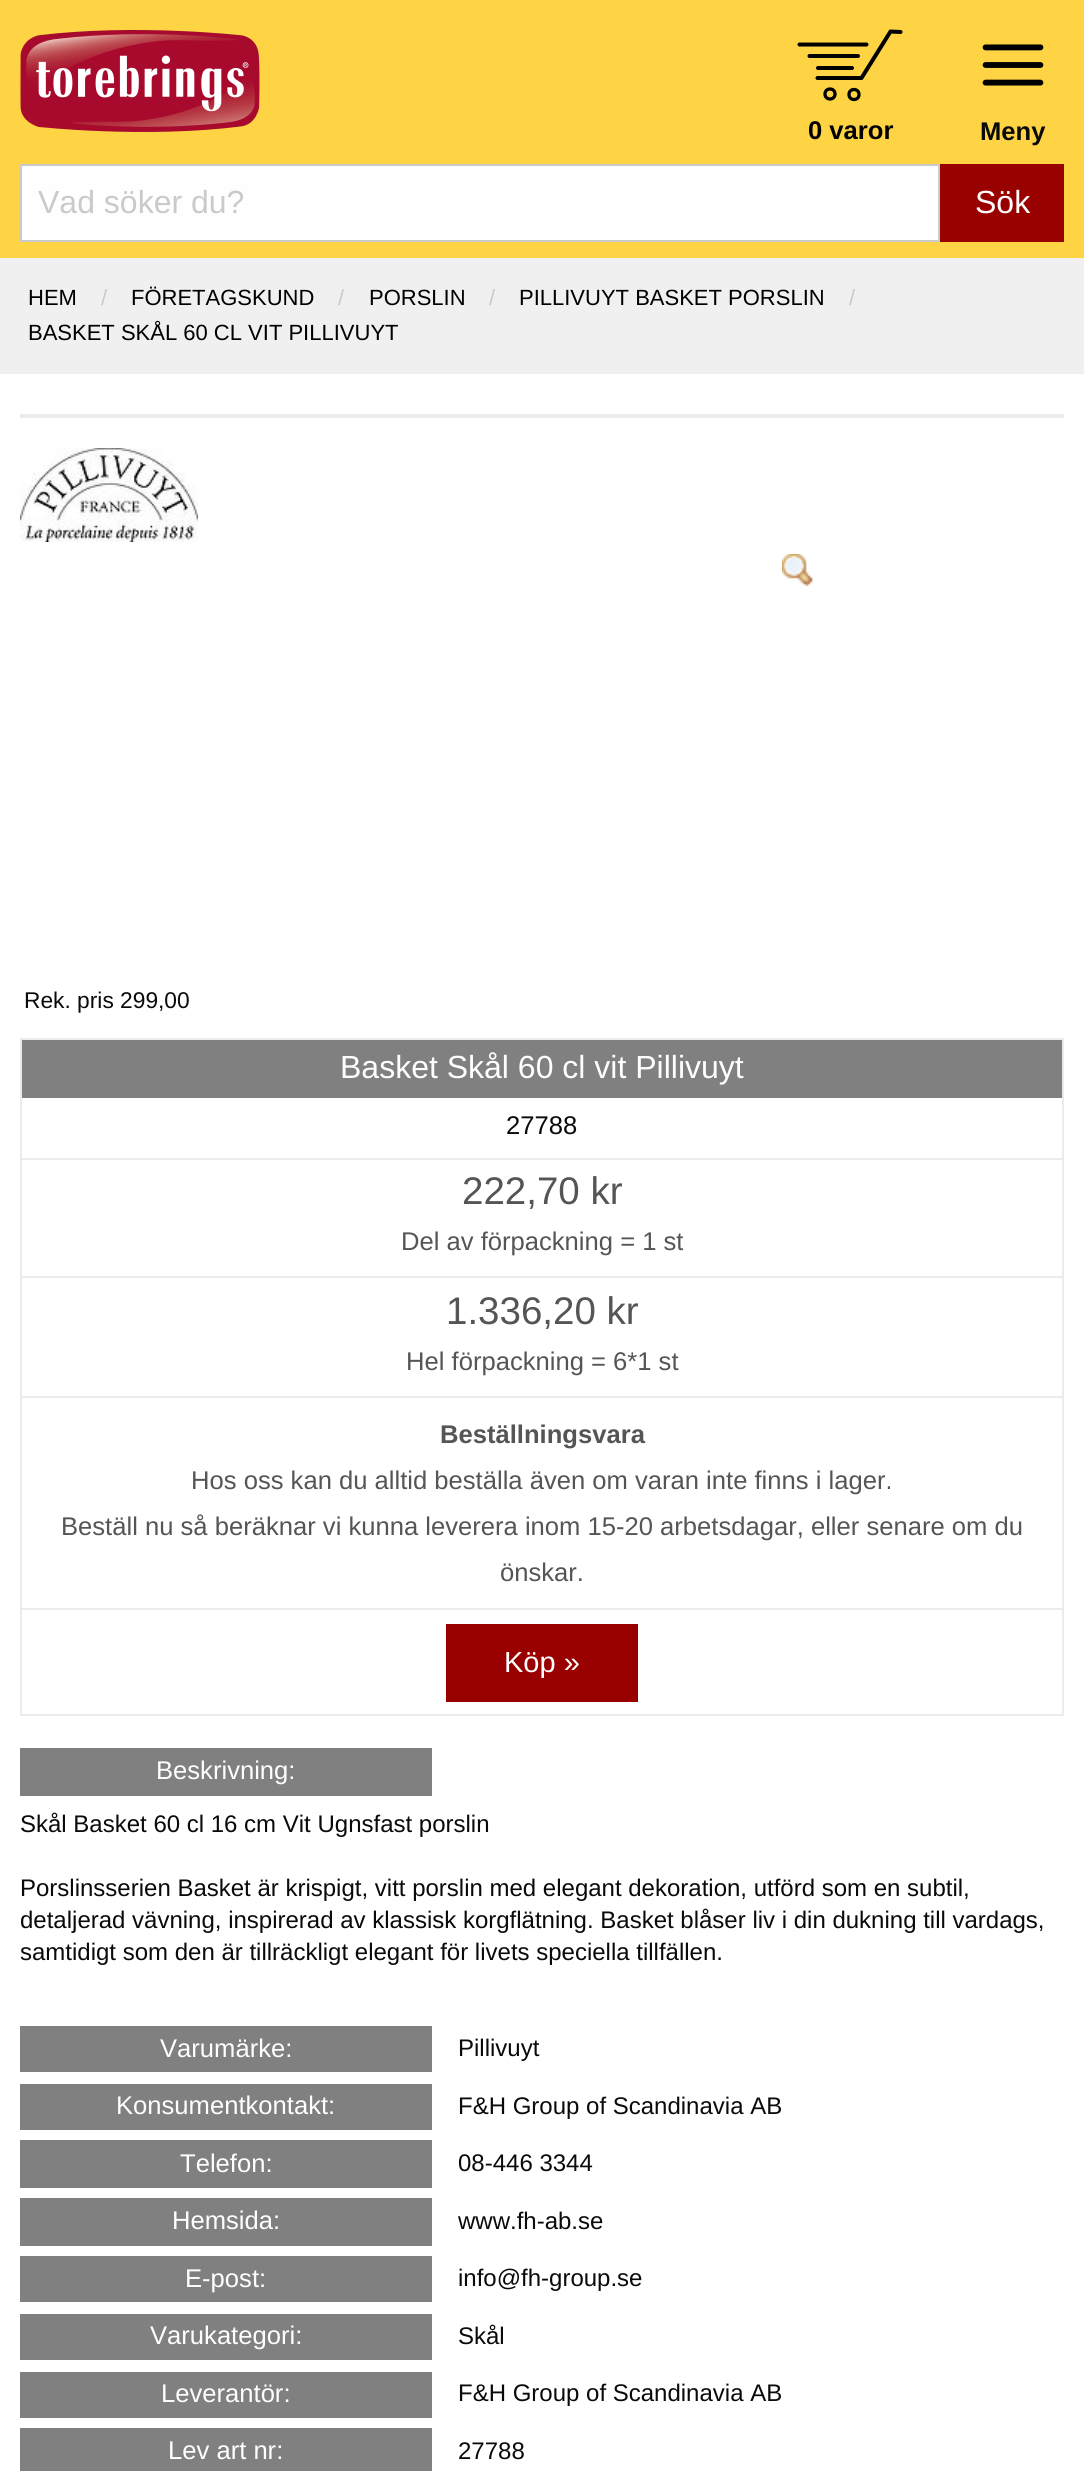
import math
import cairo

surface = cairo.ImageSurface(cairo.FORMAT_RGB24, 1084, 2471)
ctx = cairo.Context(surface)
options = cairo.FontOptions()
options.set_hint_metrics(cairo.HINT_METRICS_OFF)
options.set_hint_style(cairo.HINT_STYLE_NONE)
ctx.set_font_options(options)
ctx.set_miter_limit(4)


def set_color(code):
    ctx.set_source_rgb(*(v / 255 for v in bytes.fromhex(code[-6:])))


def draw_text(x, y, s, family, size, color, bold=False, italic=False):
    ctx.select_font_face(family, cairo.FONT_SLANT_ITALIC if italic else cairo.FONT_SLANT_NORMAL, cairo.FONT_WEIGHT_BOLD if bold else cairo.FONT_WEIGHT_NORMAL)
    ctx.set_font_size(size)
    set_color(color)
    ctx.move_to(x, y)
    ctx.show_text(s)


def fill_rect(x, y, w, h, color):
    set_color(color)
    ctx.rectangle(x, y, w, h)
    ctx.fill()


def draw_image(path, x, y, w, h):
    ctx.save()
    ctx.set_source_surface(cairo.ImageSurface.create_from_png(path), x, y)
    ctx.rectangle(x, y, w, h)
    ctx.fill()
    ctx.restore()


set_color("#ffffff")
ctx.paint()
fill_rect(0, 0, 1084, 258, "#fed444")
draw_image("assets/img1.png", 20, 30, 240, 102)
ctx.new_path()
ctx.move_to(900.5, 32)
ctx.line_to(890.5, 31.5)
ctx.line_to(861.5, 78)
ctx.line_to(817.5, 78)
set_color("#000000")
ctx.set_line_width(4)
ctx.set_line_cap(cairo.LINE_CAP_ROUND)
ctx.set_line_join(cairo.LINE_JOIN_ROUND)
ctx.stroke()
ctx.new_path()
ctx.move_to(866.5, 44.5)
ctx.line_to(799.5, 44.5)
ctx.set_line_join(cairo.LINE_JOIN_MITER)
ctx.stroke()
ctx.new_path()
ctx.move_to(809.5, 56)
ctx.line_to(858, 56)
ctx.stroke()
ctx.new_path()
ctx.move_to(852, 68)
ctx.line_to(818, 68)
ctx.set_line_join(cairo.LINE_JOIN_ROUND)
ctx.stroke()
ctx.arc(830, 94, 5, 0, 2 * math.pi)
ctx.set_line_width(3.3)
ctx.set_line_cap(cairo.LINE_CAP_BUTT)
ctx.set_line_join(cairo.LINE_JOIN_MITER)
ctx.stroke()
ctx.arc(854, 94.5, 5, 0, 2 * math.pi)
ctx.stroke()
draw_text(808, 139, "0 varor", "Liberation Sans", 25.6, "#000000", bold=True)
draw_image("assets/img2.png", 982, 44, 62, 42)
draw_text(980, 140, "Meny", "Liberation Sans", 25.6, "#0a0a0a", bold=True)
set_color("#fefefe")
ctx.rectangle(21, 165, 918, 76)
ctx.fill_preserve()
set_color("#cacaca")
ctx.set_line_width(2)
ctx.stroke()
draw_text(38, 213, "Vad söker du?", "Liberation Sans", 32, "#cacaca")
fill_rect(940, 164, 124, 78, "#990000")
draw_text(975, 213, "Sök", "Liberation Sans", 32, "#fefefe")
fill_rect(0, 258, 1084, 116, "#f0f0f0")
draw_text(28, 305, "HEM", "Liberation Sans", 22, "#000000")
draw_text(101, 305, "/", "Liberation Sans", 22, "#cacaca")
draw_text(131, 305, "FÖRETAGSKUND", "Liberation Sans", 22, "#000000")
draw_text(338, 305, "/", "Liberation Sans", 22, "#cacaca")
draw_text(369, 305, "PORSLIN", "Liberation Sans", 22, "#000000")
draw_text(489, 305, "/", "Liberation Sans", 22, "#cacaca")
draw_text(519, 305, "PILLIVUYT BASKET PORSLIN", "Liberation Sans", 22, "#000000")
draw_text(849, 305, "/", "Liberation Sans", 22, "#cacaca")
draw_text(28, 340, "BASKET SKÅL 60 CL VIT PILLIVUYT", "Liberation Sans", 22, "#000000")
fill_rect(20, 414, 1044, 4, "#ebebeb")
draw_image("assets/img3.png", 20, 448, 178, 94)
draw_image("assets/img4.png", 782, 554, 32, 32)
draw_text(24, 1008, "Rek. pris 299,00", "Liberation Sans", 22.75, "#0a0a0a")
ctx.rectangle(21, 1039, 1042, 676)
set_color("#ebebeb")
ctx.stroke()
fill_rect(22, 1040, 1040, 58, "#808080")
draw_text(340, 1078, "Basket Skål 60 cl vit Pillivuyt", "Liberation Sans", 32, "#fefefe")
fill_rect(22, 1158, 1040, 2, "#ebebeb")
draw_text(506, 1134, "27788", "Liberation Sans", 25.6, "#0a0a0a")
fill_rect(22, 1276, 1040, 2, "#ebebeb")
draw_text(462, 1204, "222,70 kr", "Liberation Sans", 38.5, "#555555")
draw_text(401, 1250, "Del av förpackning = 1 st", "Liberation Sans", 25.6, "#555555")
fill_rect(22, 1396, 1040, 2, "#ebebeb")
draw_text(446, 1324, "1.336,20 kr", "Liberation Sans", 38.5, "#555555")
draw_text(406, 1370, "Hel förpackning = 6*1 st", "Liberation Sans", 25.6, "#555555")
fill_rect(22, 1608, 1040, 2, "#ebebeb")
draw_text(440, 1443, "Beställningsvara", "Liberation Sans", 25.6, "#555555", bold=True)
draw_text(191, 1489, "Hos oss kan du alltid beställa även om varan inte finns i lager.", "Liberation Sans", 25.6, "#555555")
draw_text(61, 1535, "Beställ nu så beräknar vi kunna leverera inom 15-20 arbetsdagar, eller senare om du", "Liberation Sans", 25.6, "#555555")
draw_text(500, 1581, "önskar.", "Liberation Sans", 25.6, "#555555")
fill_rect(446, 1624, 192, 78, "#990000")
draw_text(504, 1672, "Köp »", "Liberation Sans", 29, "#fefefe")
fill_rect(20, 1748, 412, 48, "#808080")
draw_text(156, 1779, "Beskrivning:", "Liberation Sans", 25.6, "#fefefe")
draw_text(20, 1832, "Skål Basket 60 cl 16 cm Vit Ugnsfast porslin", "Liberation Sans", 24, "#0a0a0a")
draw_text(20, 1896, "Porslinsserien Basket är krispigt, vitt porslin med elegant dekoration, utförd som en subtil,", "Liberation Sans", 24, "#0a0a0a")
draw_text(20, 1928, "detaljerad vävning, inspirerad av klassisk korgflätning. Basket blåser liv i din dukning till vardags,", "Liberation Sans", 24, "#0a0a0a")
draw_text(20, 1960, "samtidigt som den är tillräckligt elegant för livets speciella tillfällen.", "Liberation Sans", 24, "#0a0a0a")
fill_rect(20, 2026, 412, 46, "#808080")
draw_text(160, 2057, "Varumärke:", "Liberation Sans", 25.6, "#fefefe")
draw_text(458, 2056, "Pillivuyt", "Liberation Sans", 24, "#0a0a0a")
fill_rect(20, 2084, 412, 46, "#808080")
draw_text(116, 2114, "Konsumentkontakt:", "Liberation Sans", 25.6, "#fefefe")
draw_text(458, 2114, "F&H Group of Scandinavia AB", "Liberation Sans", 24, "#0a0a0a")
fill_rect(20, 2140, 412, 48, "#808080")
draw_text(180, 2172, "Telefon:", "Liberation Sans", 25.6, "#fefefe")
draw_text(458, 2171, "08-446 3344", "Liberation Sans", 24, "#0a0a0a")
fill_rect(20, 2198, 412, 48, "#808080")
draw_text(172, 2229, "Hemsida:", "Liberation Sans", 25.6, "#fefefe")
draw_text(458, 2229, "www.fh-ab.se", "Liberation Sans", 24, "#0a0a0a")
fill_rect(20, 2256, 412, 46, "#808080")
draw_text(185, 2287, "E-post:", "Liberation Sans", 25.6, "#fefefe")
draw_text(458, 2286, "info@fh-group.se", "Liberation Sans", 24, "#0a0a0a")
fill_rect(20, 2314, 412, 46, "#808080")
draw_text(150, 2344, "Varukategori:", "Liberation Sans", 25.6, "#fefefe")
draw_text(458, 2344, "Skål", "Liberation Sans", 24, "#0a0a0a")
fill_rect(20, 2372, 412, 46, "#808080")
draw_text(161, 2402, "Leverantör:", "Liberation Sans", 25.6, "#fefefe")
draw_text(458, 2401, "F&H Group of Scandinavia AB", "Liberation Sans", 24, "#0a0a0a")
fill_rect(20, 2428, 412, 43, "#808080")
draw_text(168, 2459, "Lev art nr:", "Liberation Sans", 25.6, "#fefefe")
draw_text(458, 2459, "27788", "Liberation Sans", 24, "#0a0a0a")
surface.write_to_png("output.png")
